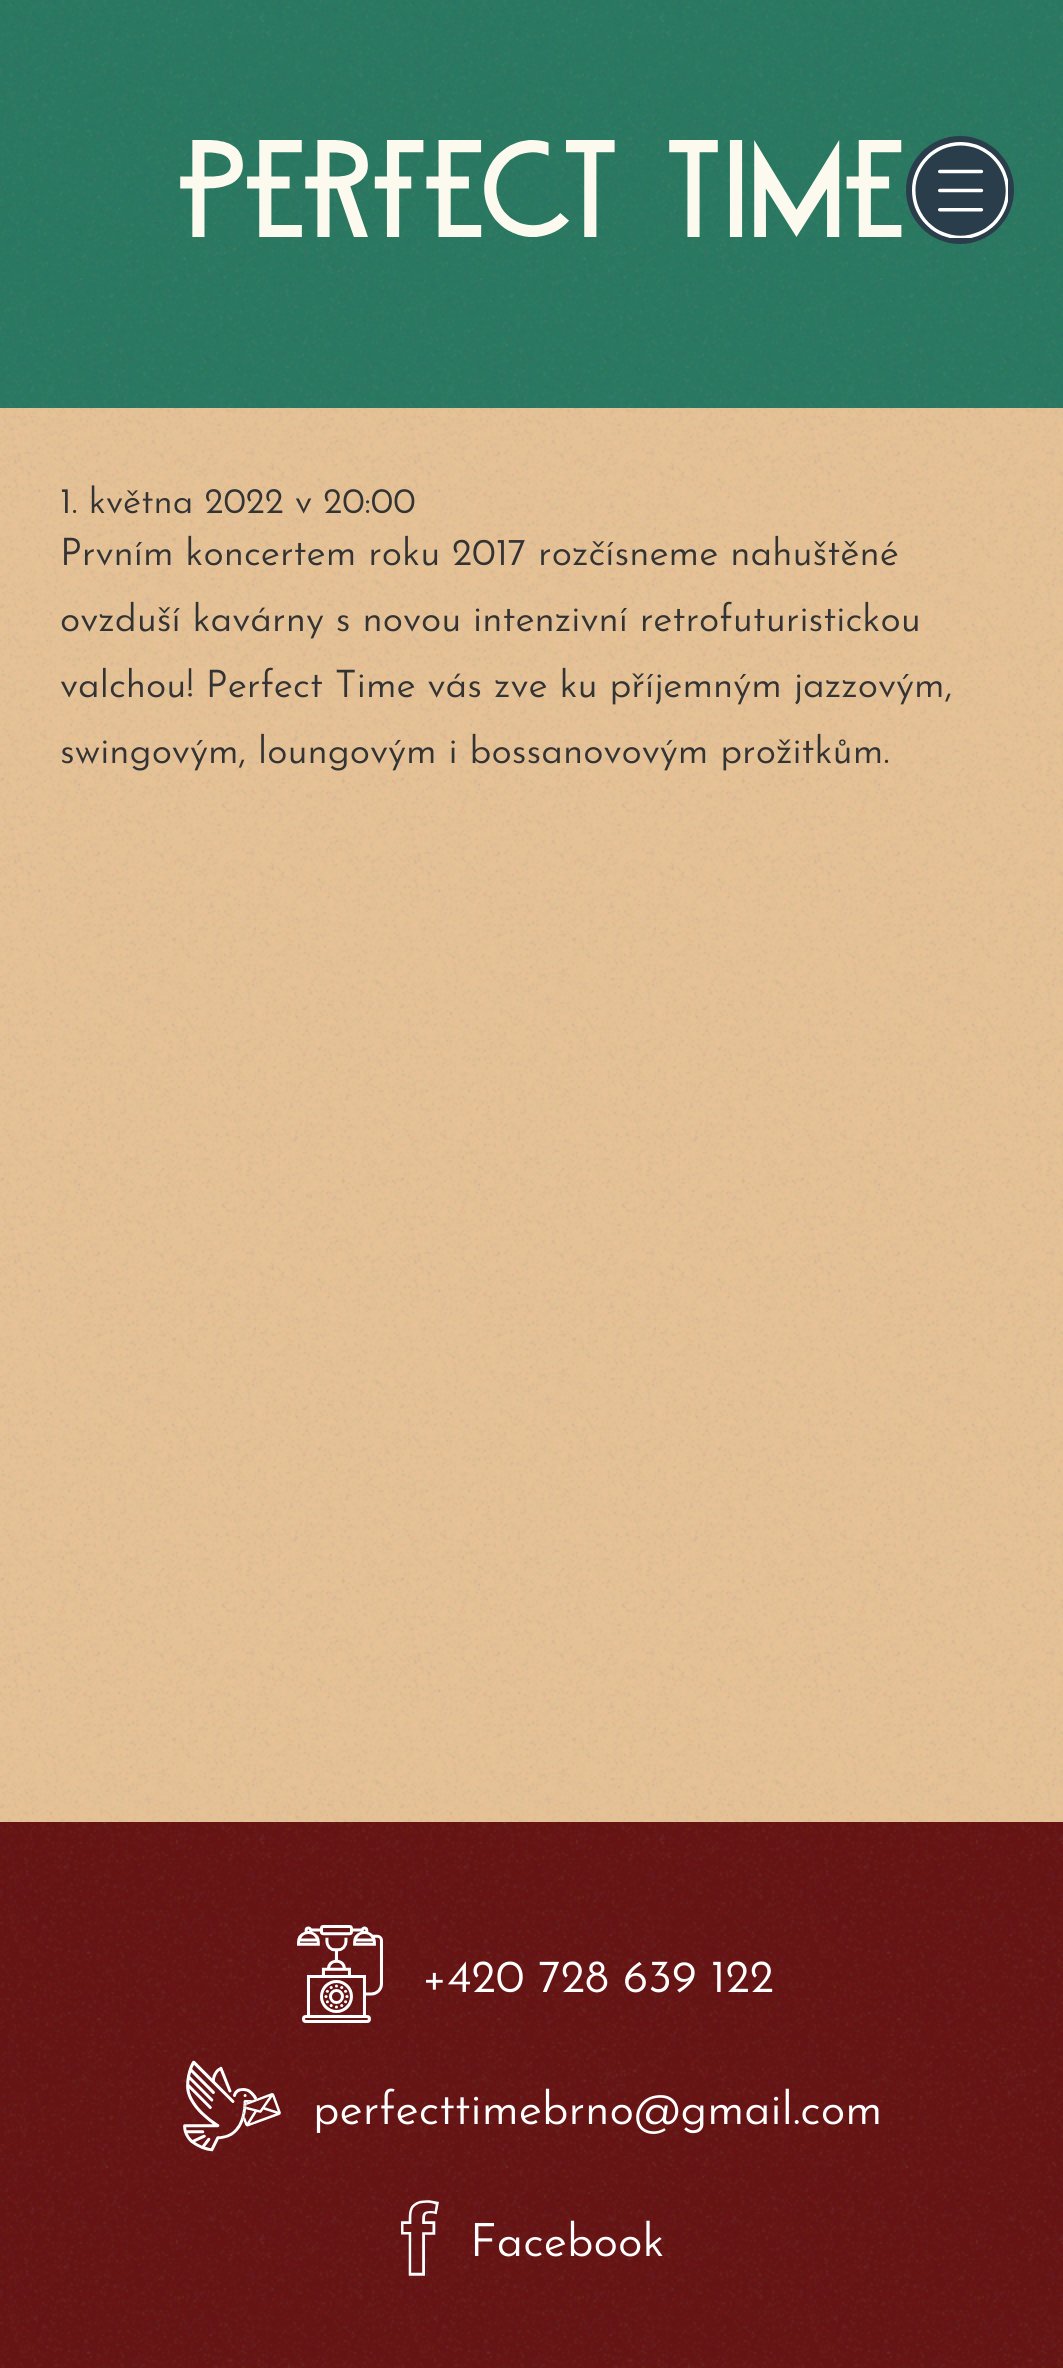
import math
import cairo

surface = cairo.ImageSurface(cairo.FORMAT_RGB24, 1063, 2368)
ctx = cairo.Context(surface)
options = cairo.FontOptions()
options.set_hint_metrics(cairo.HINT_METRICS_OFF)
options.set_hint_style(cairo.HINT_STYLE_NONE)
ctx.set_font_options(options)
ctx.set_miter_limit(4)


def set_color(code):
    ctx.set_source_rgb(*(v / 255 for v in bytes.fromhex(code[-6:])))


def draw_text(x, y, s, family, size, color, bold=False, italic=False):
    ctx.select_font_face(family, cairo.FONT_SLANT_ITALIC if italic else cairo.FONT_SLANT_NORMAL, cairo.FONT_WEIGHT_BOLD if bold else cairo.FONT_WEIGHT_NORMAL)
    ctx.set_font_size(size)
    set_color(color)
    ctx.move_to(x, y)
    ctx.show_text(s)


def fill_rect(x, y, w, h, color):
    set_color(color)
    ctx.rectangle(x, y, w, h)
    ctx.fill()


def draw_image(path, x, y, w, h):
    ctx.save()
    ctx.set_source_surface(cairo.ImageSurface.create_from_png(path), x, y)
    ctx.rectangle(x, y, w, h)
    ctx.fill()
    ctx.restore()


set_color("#e6c296")
ctx.paint()
draw_image("assets/img1.png", 0, 408, 1063, 1414)
fill_rect(0, 0, 1063, 408, "#297861")
draw_image("assets/img2.png", 0, 0, 1063, 408)
draw_image("assets/img3.png", 180, 140, 722, 97)
draw_image("assets/img4.png", 906, 136, 108, 108)
draw_image("assets/img5.png", 912, 142, 96, 96)
draw_text(60, 513, "1. května 2022 v 20:00", "Josefin Sans Light", 36, "#333333")
draw_text(60, 565, "Prvním koncertem roku 2017 rozčísneme nahuštěné", "Josefin Sans Light", 38, "#333333")
draw_text(60, 631, "ovzduší kavárny s novou intenzivní retrofuturistickou", "Josefin Sans Light", 38, "#333333")
draw_text(60, 697, "valchou! Perfect Time vás zve ku příjemným jazzovým,", "Josefin Sans Light", 38, "#333333")
draw_text(60, 763, "swingovým, loungovým i bossanovovým prožitkům.", "Josefin Sans Light", 38, "#333333")
fill_rect(0, 1822, 1063, 546, "#661313")
draw_image("assets/img6.png", 0, 1822, 1063, 546)
draw_image("assets/img7.png", 297, 1925, 86, 98)
draw_text(422, 1992, "+420 728 639 122", "Josefin Sans Light", 46, "#ffffff")
draw_image("assets/img8.png", 183, 2060, 98, 92)
draw_text(313, 2124, "perfecttimebrno@gmail.com", "Josefin Sans Light", 46, "#ffffff")
draw_image("assets/img9.png", 401, 2200, 38, 76)
draw_text(470, 2256, "Facebook", "Josefin Sans Light", 46, "#ffffff")
surface.write_to_png("output.png")
